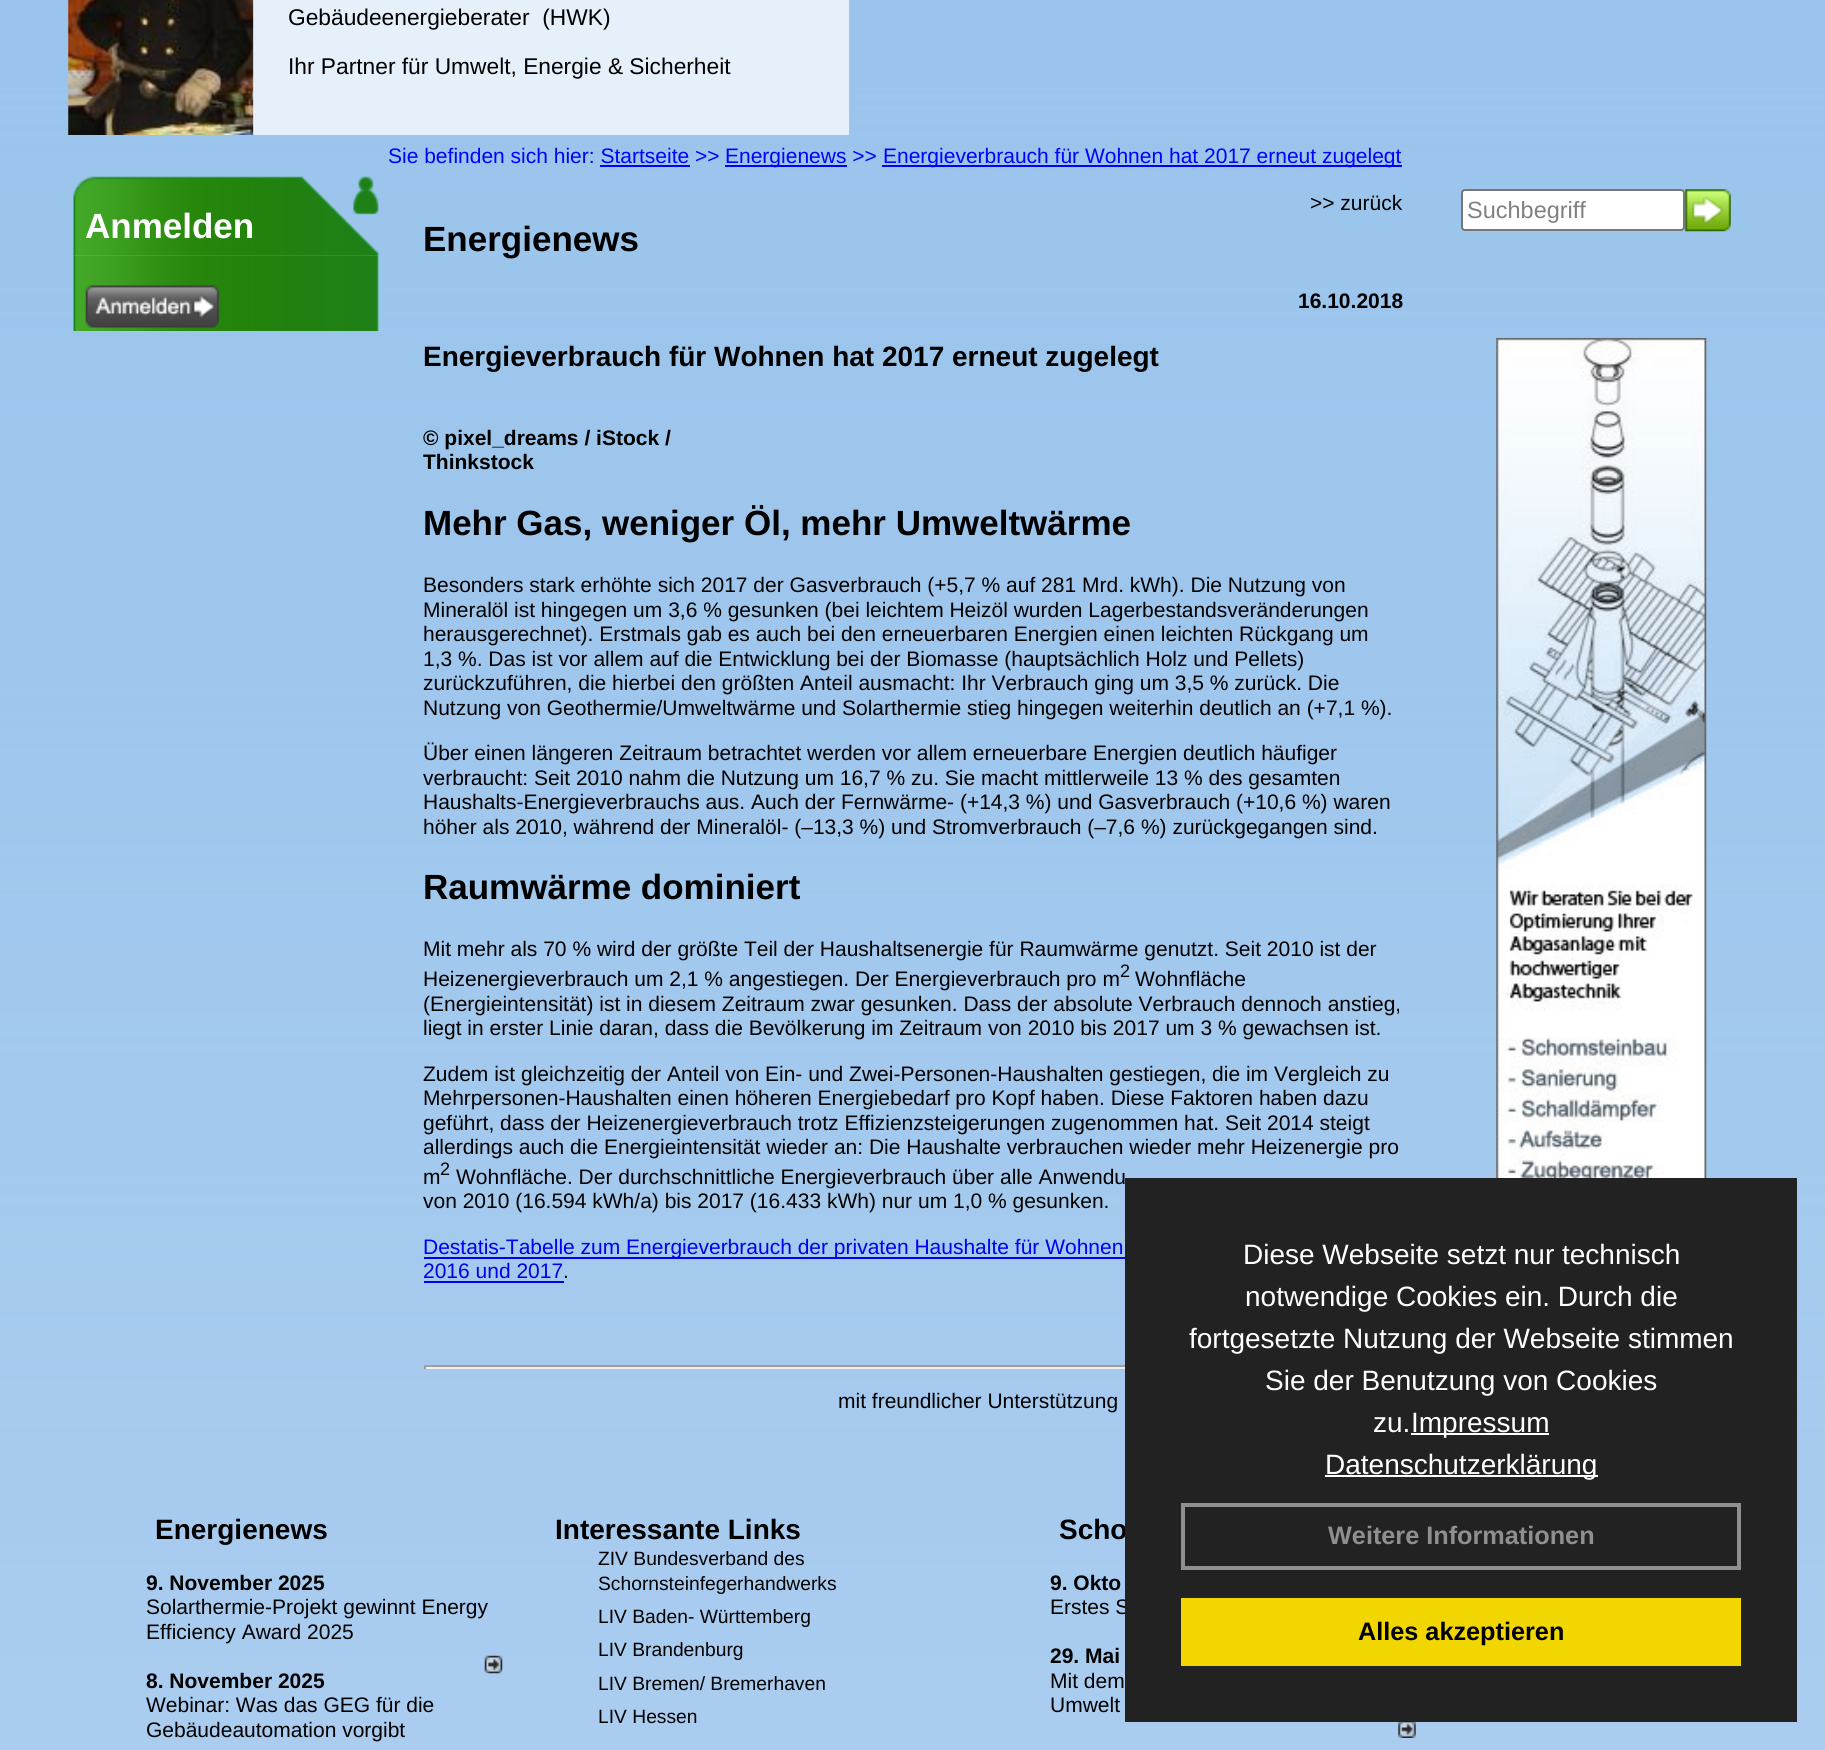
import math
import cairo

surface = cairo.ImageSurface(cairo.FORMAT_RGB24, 1825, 1750)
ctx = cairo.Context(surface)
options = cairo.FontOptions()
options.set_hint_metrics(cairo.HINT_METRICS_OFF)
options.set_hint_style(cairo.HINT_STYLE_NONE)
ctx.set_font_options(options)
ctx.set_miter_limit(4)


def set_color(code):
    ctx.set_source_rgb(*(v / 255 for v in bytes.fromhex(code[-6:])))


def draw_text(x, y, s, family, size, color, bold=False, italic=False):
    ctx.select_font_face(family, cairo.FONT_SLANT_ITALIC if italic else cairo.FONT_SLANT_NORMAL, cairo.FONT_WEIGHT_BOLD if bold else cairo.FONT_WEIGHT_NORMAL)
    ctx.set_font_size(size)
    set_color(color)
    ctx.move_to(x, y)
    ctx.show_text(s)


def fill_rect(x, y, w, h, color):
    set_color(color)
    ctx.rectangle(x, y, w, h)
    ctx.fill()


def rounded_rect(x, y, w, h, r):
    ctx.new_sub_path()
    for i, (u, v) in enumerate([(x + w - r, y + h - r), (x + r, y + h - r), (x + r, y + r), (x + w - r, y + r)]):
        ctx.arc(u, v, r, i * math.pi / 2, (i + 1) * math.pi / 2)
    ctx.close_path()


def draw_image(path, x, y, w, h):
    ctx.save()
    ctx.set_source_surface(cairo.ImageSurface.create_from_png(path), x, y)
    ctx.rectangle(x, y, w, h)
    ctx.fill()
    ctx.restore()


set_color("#ffffff")
ctx.paint()
draw_image("assets/img1.png", 0, 0, 1825, 1750)
draw_image("assets/img2.png", 68, 0, 186, 135)
ctx.set_source_rgba(1, 1, 1, 0.75)
ctx.rectangle(253, 0, 596, 135)
ctx.fill()
draw_text(288, 25, "Gebäudeenergieberater  (HWK)", "Liberation Sans", 22.75, "#000000")
draw_text(288, 74, "Ihr Partner für Umwelt, Energie & Sicherheit", "Liberation Sans", 22.75, "#000000")
draw_text(388, 163, "Sie befinden sich hier: Startseite >>", "Liberation Sans", 21, "#0000ff")
fill_rect(725, 165, 122, 2, "#0000ff")
draw_text(725, 163, "Energienews >>", "Liberation Sans", 21, "#0000ff")
fill_rect(882, 165, 520, 2, "#0000ff")
draw_text(883, 163, "Energieverbrauch für Wohnen hat 2017 erneut zugelegt", "Liberation Sans", 21, "#0000ff")
fill_rect(600, 165, 90, 2, "#0000ff")
draw_image("assets/img3.png", 73, 176, 306, 80)
draw_text(85, 238, "Anmelden", "Liberation Sans", 35, "#ffffff", bold=True)
draw_image("assets/img4.png", 73, 255, 306, 76)
draw_image("assets/img5.png", 85, 285, 134, 43)
draw_text(1310, 210, ">> zurück", "Liberation Sans", 21, "#000000")
draw_text(423, 251, "Energienews", "Liberation Sans", 35, "#000000", bold=True)
draw_text(1298, 308, "16.10.2018", "Liberation Sans", 21, "#000000", bold=True)
draw_text(423, 366, "Energieverbrauch für Wohnen hat 2017 erneut zugelegt", "Liberation Sans", 28, "#000000", bold=True)
draw_text(423, 445, "© pixel_dreams / iStock /", "Liberation Sans", 21, "#000000", bold=True)
draw_text(423, 469, "Thinkstock", "Liberation Sans", 21, "#000000", bold=True)
draw_text(423, 535, "Mehr Gas, weniger Öl, mehr Umweltwärme", "Liberation Sans", 35, "#000000", bold=True)
draw_text(423, 592, "Besonders stark erhöhte sich 2017 der Gasverbrauch (+5,7 % auf 281 Mrd. kWh). Die Nutzung von", "Liberation Sans", 21, "#000000")
draw_text(423, 617, "Mineralöl ist hingegen um 3,6 % gesunken (bei leichtem Heizöl wurden Lagerbestandsveränderungen", "Liberation Sans", 21, "#000000")
draw_text(423, 641, "herausgerechnet). Erstmals gab es auch bei den erneuerbaren Energien einen leichten Rückgang um", "Liberation Sans", 21, "#000000")
draw_text(423, 666, "1,3 %. Das ist vor allem auf die Entwicklung bei der Biomasse (hauptsächlich Holz und Pellets)", "Liberation Sans", 21, "#000000")
draw_text(423, 690, "zurückzuführen, die hierbei den größten Anteil ausmacht: Ihr Verbrauch ging um 3,5 % zurück. Die", "Liberation Sans", 21, "#000000")
draw_text(423, 715, "Nutzung von Geothermie/Umweltwärme und Solarthermie stieg hingegen weiterhin deutlich an (+7,1 %).", "Liberation Sans", 21, "#000000")
draw_text(423, 760, "Über einen längeren Zeitraum betrachtet werden vor allem erneuerbare Energien deutlich häufiger", "Liberation Sans", 21, "#000000")
draw_text(423, 785, "verbraucht: Seit 2010 nahm die Nutzung um 16,7 % zu. Sie macht mittlerweile 13 % des gesamten", "Liberation Sans", 21, "#000000")
draw_text(423, 809, "Haushalts-Energieverbrauchs aus. Auch der Fernwärme- (+14,3 %) und Gasverbrauch (+10,6 %) waren", "Liberation Sans", 21, "#000000")
draw_text(423, 834, "höher als 2010, während der Mineralöl- (–13,3 %) und Stromverbrauch (–7,6 %) zurückgegangen sind.", "Liberation Sans", 21, "#000000")
draw_text(423, 899, "Raumwärme dominiert", "Liberation Sans", 35, "#000000", bold=True)
draw_text(423, 956, "Mit mehr als 70 % wird der größte Teil der Haushaltsenergie für Raumwärme genutzt. Seit 2010 ist der", "Liberation Sans", 21, "#000000")
draw_text(423, 986, "Heizenergieverbrauch um 2,1 % angestiegen. Der Energieverbrauch pro m", "Liberation Sans", 21, "#000000")
draw_text(1120, 977, "2", "Liberation Sans", 18, "#000000")
draw_text(1135, 986, "Wohnfläche", "Liberation Sans", 21, "#000000")
draw_text(423, 1011, "(Energieintensität) ist in diesem Zeitraum zwar gesunken. Dass der absolute Verbrauch dennoch anstieg,", "Liberation Sans", 21, "#000000")
draw_text(423, 1035, "liegt in erster Linie daran, dass die Bevölkerung im Zeitraum von 2010 bis 2017 um 3 % gewachsen ist.", "Liberation Sans", 21, "#000000")
draw_text(423, 1081, "Zudem ist gleichzeitig der Anteil von Ein- und Zwei-Personen-Haushalten gestiegen, die im Vergleich zu", "Liberation Sans", 21, "#000000")
draw_text(423, 1105, "Mehrpersonen-Haushalten einen höheren Energiebedarf pro Kopf haben. Diese Faktoren haben dazu", "Liberation Sans", 21, "#000000")
draw_text(423, 1130, "geführt, dass der Heizenergieverbrauch trotz Effizienzsteigerungen zugenommen hat. Seit 2014 steigt", "Liberation Sans", 21, "#000000")
draw_text(423, 1154, "allerdings auch die Energieintensität wieder an: Die Haushalte verbrauchen wieder mehr Heizenergie pro", "Liberation Sans", 21, "#000000")
draw_text(423, 1184, "m", "Liberation Sans", 21, "#000000")
draw_text(440, 1175, "2", "Liberation Sans", 18, "#000000")
draw_text(456, 1184, "Wohnfläche. Der durchschnittliche Energieverbrauch über alle Anwendu", "Liberation Sans", 21, "#000000")
draw_text(423, 1208, "von 2010 (16.594 kWh/a) bis 2017 (16.433 kWh) nur um 1,0 % gesunken.", "Liberation Sans", 21, "#000000")
fill_rect(424, 1257, 701, 2, "#0000ee")
draw_text(423, 1254, "Destatis-Tabelle zum Energieverbrauch der privaten Haushalte für Wohnen", "Liberation Sans", 21, "#0000ee")
draw_text(423, 1278, "2016 und 2017", "Liberation Sans", 21, "#0000ee")
fill_rect(424, 1281, 140, 2, "#0000ee")
draw_text(563, 1278, ".", "Liberation Sans", 21, "#000000")
fill_rect(424, 1365, 701, 2, "#9f9f9f")
fill_rect(424, 1367, 701, 2, "#eeeeee")
fill_rect(424, 1365, 2, 4, "#9f9f9f")
draw_text(838, 1408, "mit freundlicher Unterstützung", "Liberation Sans", 21, "#000000")
set_color("#ffffff")
rounded_rect(1462, 190, 222, 40, 3)
ctx.fill_preserve()
set_color("#767676")
ctx.stroke()
draw_text(1467, 218, "Suchbegriff", "Liberation Sans", 23.5, "#808080")
draw_image("assets/img6.png", 1685, 189, 46, 43)
draw_image("assets/img7.png", 1496, 338, 211, 840)
draw_text(155, 1539, "Energienews", "Liberation Sans", 28, "#000000", bold=True)
draw_text(146, 1590, "9. November 2025", "Liberation Sans", 21, "#000000", bold=True)
draw_text(146, 1614, "Solarthermie-Projekt gewinnt Energy", "Liberation Sans", 21, "#000000")
draw_text(146, 1639, "Efficiency Award 2025", "Liberation Sans", 21, "#000000")
draw_image("assets/img8.png", 484, 1655, 19, 19)
draw_text(146, 1688, "8. November 2025", "Liberation Sans", 21, "#000000", bold=True)
draw_text(146, 1712, "Webinar: Was das GEG für die", "Liberation Sans", 21, "#000000")
draw_text(146, 1737, "Gebäudeautomation vorgibt", "Liberation Sans", 21, "#000000")
draw_text(555, 1539, "Interessante Links", "Liberation Sans", 28, "#000000", bold=True)
draw_text(598, 1565, "ZIV Bundesverband des", "Liberation Sans", 19.25, "#000000")
draw_text(598, 1590, "Schornsteinfegerhandwerks", "Liberation Sans", 19.25, "#000000")
draw_text(598, 1623, "LIV Baden- Württemberg", "Liberation Sans", 19.25, "#000000")
draw_text(598, 1656, "LIV Brandenburg", "Liberation Sans", 19.25, "#000000")
draw_text(598, 1690, "LIV Bremen/ Bremerhaven", "Liberation Sans", 19.25, "#000000")
draw_text(598, 1723, "LIV Hessen", "Liberation Sans", 19.25, "#000000")
draw_text(1059, 1539, "Scho", "Liberation Sans", 28, "#000000", bold=True)
draw_text(1050, 1590, "9. Okto", "Liberation Sans", 21, "#000000", bold=True)
draw_text(1050, 1614, "Erstes S", "Liberation Sans", 21, "#000000")
draw_text(1050, 1663, "29. Mai", "Liberation Sans", 21, "#000000", bold=True)
draw_text(1050, 1688, "Mit dem", "Liberation Sans", 21, "#000000")
draw_text(1050, 1712, "Umwelt", "Liberation Sans", 21, "#000000")
draw_image("assets/img9.png", 1398, 1722, 18, 16)
fill_rect(1125, 1178, 672, 544, "#222222")
draw_text(1243, 1264, "Diese Webseite setzt nur technisch", "Liberation Sans", 28, "#ffffff")
draw_text(1245, 1306, "notwendige Cookies ein. Durch die", "Liberation Sans", 28, "#ffffff")
draw_text(1189, 1348, "fortgesetzte Nutzung der Webseite stimmen", "Liberation Sans", 28, "#ffffff")
draw_text(1265, 1390, "Sie der Benutzung von Cookies", "Liberation Sans", 28, "#ffffff")
draw_text(1373, 1432, "zu.", "Liberation Sans", 28, "#ffffff")
fill_rect(1411, 1433, 138, 2, "#ffffff")
draw_text(1411, 1432, "Impressum", "Liberation Sans", 28, "#ffffff")
fill_rect(1325, 1475, 273, 2, "#ffffff")
draw_text(1325, 1474, "Datenschutzerklärung", "Liberation Sans", 28, "#ffffff")
ctx.rectangle(1183, 1505, 556, 63)
set_color("#8f8f8f")
ctx.set_line_width(4)
ctx.stroke()
draw_text(1328, 1544, "Weitere Informationen", "Liberation Sans", 25.25, "#8f8f8f", bold=True)
fill_rect(1181, 1598, 560, 68, "#f1d600")
draw_text(1358, 1640, "Alles akzeptieren", "Liberation Sans", 25.25, "#000000", bold=True)
surface.write_to_png("output.png")
